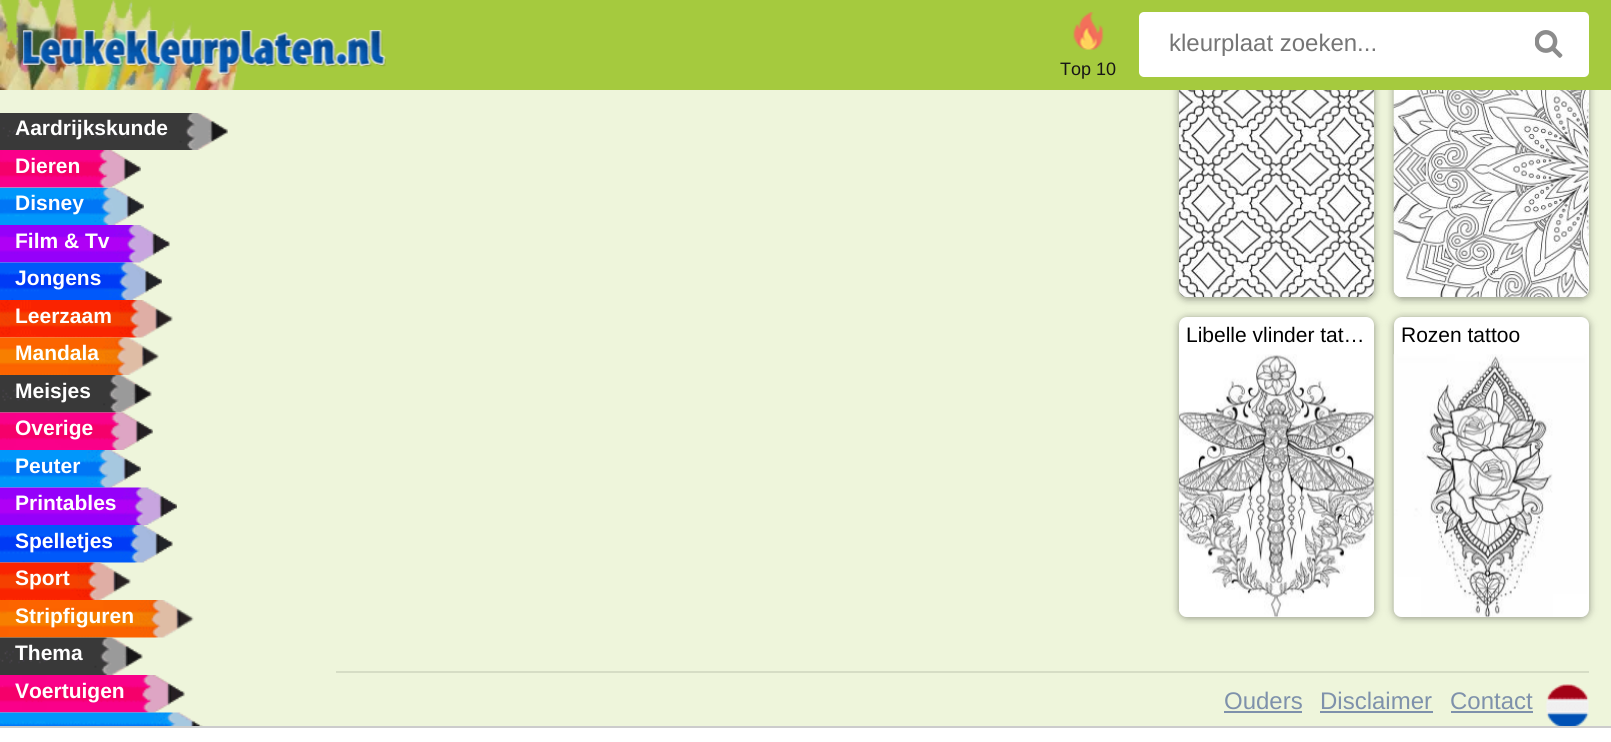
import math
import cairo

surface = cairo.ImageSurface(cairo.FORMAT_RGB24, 1611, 742)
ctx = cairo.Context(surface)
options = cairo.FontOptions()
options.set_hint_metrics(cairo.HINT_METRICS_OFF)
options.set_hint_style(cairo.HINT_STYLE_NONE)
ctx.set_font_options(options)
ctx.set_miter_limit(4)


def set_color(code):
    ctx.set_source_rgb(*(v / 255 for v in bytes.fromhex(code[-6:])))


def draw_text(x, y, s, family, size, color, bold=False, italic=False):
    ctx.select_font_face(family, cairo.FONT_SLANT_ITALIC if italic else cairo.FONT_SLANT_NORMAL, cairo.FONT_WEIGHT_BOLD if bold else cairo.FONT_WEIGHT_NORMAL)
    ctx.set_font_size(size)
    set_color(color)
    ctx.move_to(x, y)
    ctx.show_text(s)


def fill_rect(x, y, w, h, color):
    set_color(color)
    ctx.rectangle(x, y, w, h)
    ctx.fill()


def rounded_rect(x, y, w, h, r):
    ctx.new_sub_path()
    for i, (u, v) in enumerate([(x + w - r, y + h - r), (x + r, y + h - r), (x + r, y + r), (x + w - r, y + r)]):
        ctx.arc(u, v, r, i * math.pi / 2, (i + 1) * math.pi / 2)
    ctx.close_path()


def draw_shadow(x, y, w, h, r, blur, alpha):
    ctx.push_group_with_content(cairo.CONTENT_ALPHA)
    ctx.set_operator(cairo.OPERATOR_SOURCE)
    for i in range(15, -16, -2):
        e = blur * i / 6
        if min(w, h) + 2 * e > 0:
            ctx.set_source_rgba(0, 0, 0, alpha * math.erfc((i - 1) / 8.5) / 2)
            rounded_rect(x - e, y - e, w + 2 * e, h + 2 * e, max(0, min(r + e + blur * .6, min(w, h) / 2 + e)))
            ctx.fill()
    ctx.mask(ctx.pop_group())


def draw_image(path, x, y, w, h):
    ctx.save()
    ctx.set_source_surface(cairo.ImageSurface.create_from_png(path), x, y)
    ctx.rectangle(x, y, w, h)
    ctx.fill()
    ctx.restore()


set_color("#eef5db")
ctx.paint()
set_color("#000000")
draw_shadow(1179, -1, 195, 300, 8, 4, 0.4)
draw_shadow(1394, -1, 195, 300, 8, 4, 0.4)
set_color("#ffffff")
rounded_rect(1394, -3, 195, 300, 8)
ctx.fill()
fill_rect(0, 0, 1611, 90, "#a5ca3e")
draw_image("assets/img1.png", 0, 0, 239, 90)
draw_image("assets/img2.png", 23, 30, 363, 45)
set_color("#ffffff")
rounded_rect(1139, 12, 450, 65, 5)
ctx.fill()
draw_text(1169, 51, "kleurplaat zoeken...", "Liberation Sans", 24, "#757575")
draw_image("assets/img3.png", 1535, 30, 28, 28)
draw_image("assets/img4.png", 1073, 12, 31, 38)
draw_text(1060, 75, "Top 10", "Liberation Sans", 18, "#171616")
draw_image("assets/img5.png", 0, 113, 228, 37)
draw_text(15, 135, "Aardrijkskunde", "Liberation Sans", 21, "#ffffff", bold=True)
draw_image("assets/img6.png", 0, 150, 141, 38)
draw_text(15, 173, "Dieren", "Liberation Sans", 21, "#ffffff", bold=True)
draw_image("assets/img7.png", 0, 187, 144, 38)
draw_text(15, 210, "Disney", "Liberation Sans", 21, "#ffffff", bold=True)
draw_image("assets/img8.png", 0, 225, 170, 38)
draw_text(15, 248, "Film & Tv", "Liberation Sans", 21, "#ffffff", bold=True)
draw_image("assets/img9.png", 0, 262, 162, 38)
draw_text(15, 285, "Jongens", "Liberation Sans", 21, "#ffffff", bold=True)
draw_image("assets/img10.png", 0, 300, 173, 38)
draw_text(15, 323, "Leerzaam", "Liberation Sans", 21, "#ffffff", bold=True)
draw_image("assets/img11.png", 0, 337, 159, 38)
draw_text(15, 360, "Mandala", "Liberation Sans", 21, "#ffffff", bold=True)
draw_image("assets/img12.png", 0, 375, 152, 38)
draw_text(15, 398, "Meisjes", "Liberation Sans", 21, "#ffffff", bold=True)
draw_image("assets/img13.png", 0, 412, 153, 38)
draw_text(15, 435, "Overige", "Liberation Sans", 21, "#ffffff", bold=True)
draw_image("assets/img14.png", 0, 450, 141, 38)
draw_text(15, 473, "Peuter", "Liberation Sans", 21, "#ffffff", bold=True)
draw_image("assets/img15.png", 0, 487, 177, 38)
draw_text(15, 510, "Printables", "Liberation Sans", 21, "#ffffff", bold=True)
draw_image("assets/img16.png", 0, 525, 173, 38)
draw_text(15, 548, "Spelletjes", "Liberation Sans", 21, "#ffffff", bold=True)
draw_image("assets/img17.png", 0, 562, 131, 38)
draw_text(15, 585, "Sport", "Liberation Sans", 21, "#ffffff", bold=True)
draw_image("assets/img18.png", 0, 600, 194, 38)
draw_text(15, 623, "Stripfiguren", "Liberation Sans", 21, "#ffffff", bold=True)
draw_image("assets/img19.png", 0, 637, 143, 38)
draw_text(15, 660, "Thema", "Liberation Sans", 21, "#ffffff", bold=True)
draw_image("assets/img20.png", 0, 675, 185, 38)
draw_text(15, 698, "Voertuigen", "Liberation Sans", 21, "#ffffff", bold=True)
draw_image("assets/img21.png", 0, 712, 203, 14)
draw_image("assets/img22.png", 1179, 90, 195, 207)
draw_image("assets/img23.png", 1393, 90, 196, 207)
set_color("#000000")
draw_shadow(1179, 318, 195, 300, 8, 4, 0.4)
set_color("#ffffff")
rounded_rect(1179, 317, 195, 300, 8)
ctx.fill()
draw_text(1186, 342, "Libelle vlinder tat…", "Liberation Sans", 21, "#000000")
draw_image("assets/img24.png", 1179, 354, 195, 263)
set_color("#000000")
draw_shadow(1394, 318, 195, 300, 8, 4, 0.4)
set_color("#ffffff")
rounded_rect(1394, 317, 195, 300, 8)
ctx.fill()
draw_text(1401, 342, "Rozen tattoo", "Liberation Sans", 21, "#000000")
draw_image("assets/img25.png", 1393, 354, 194, 263)
fill_rect(336, 671, 1253, 2, "#d6ddc5")
draw_text(1224, 709, "Ouders", "Liberation Sans", 24, "#7e91ab")
fill_rect(1224, 711, 78, 2, "#7e91ab")
draw_text(1320, 709, "Disclaimer", "Liberation Sans", 24, "#7e91ab")
fill_rect(1320, 711, 113, 2, "#7e91ab")
draw_text(1450, 709, "Contact", "Liberation Sans", 24, "#7e91ab")
fill_rect(1451, 711, 82, 2, "#7e91ab")
draw_image("assets/img26.png", 1545, 684, 44, 42)
fill_rect(0, 728, 1611, 14, "#ffffff")
fill_rect(0, 726, 1611, 2, "#cccccc")
surface.write_to_png("output.png")
